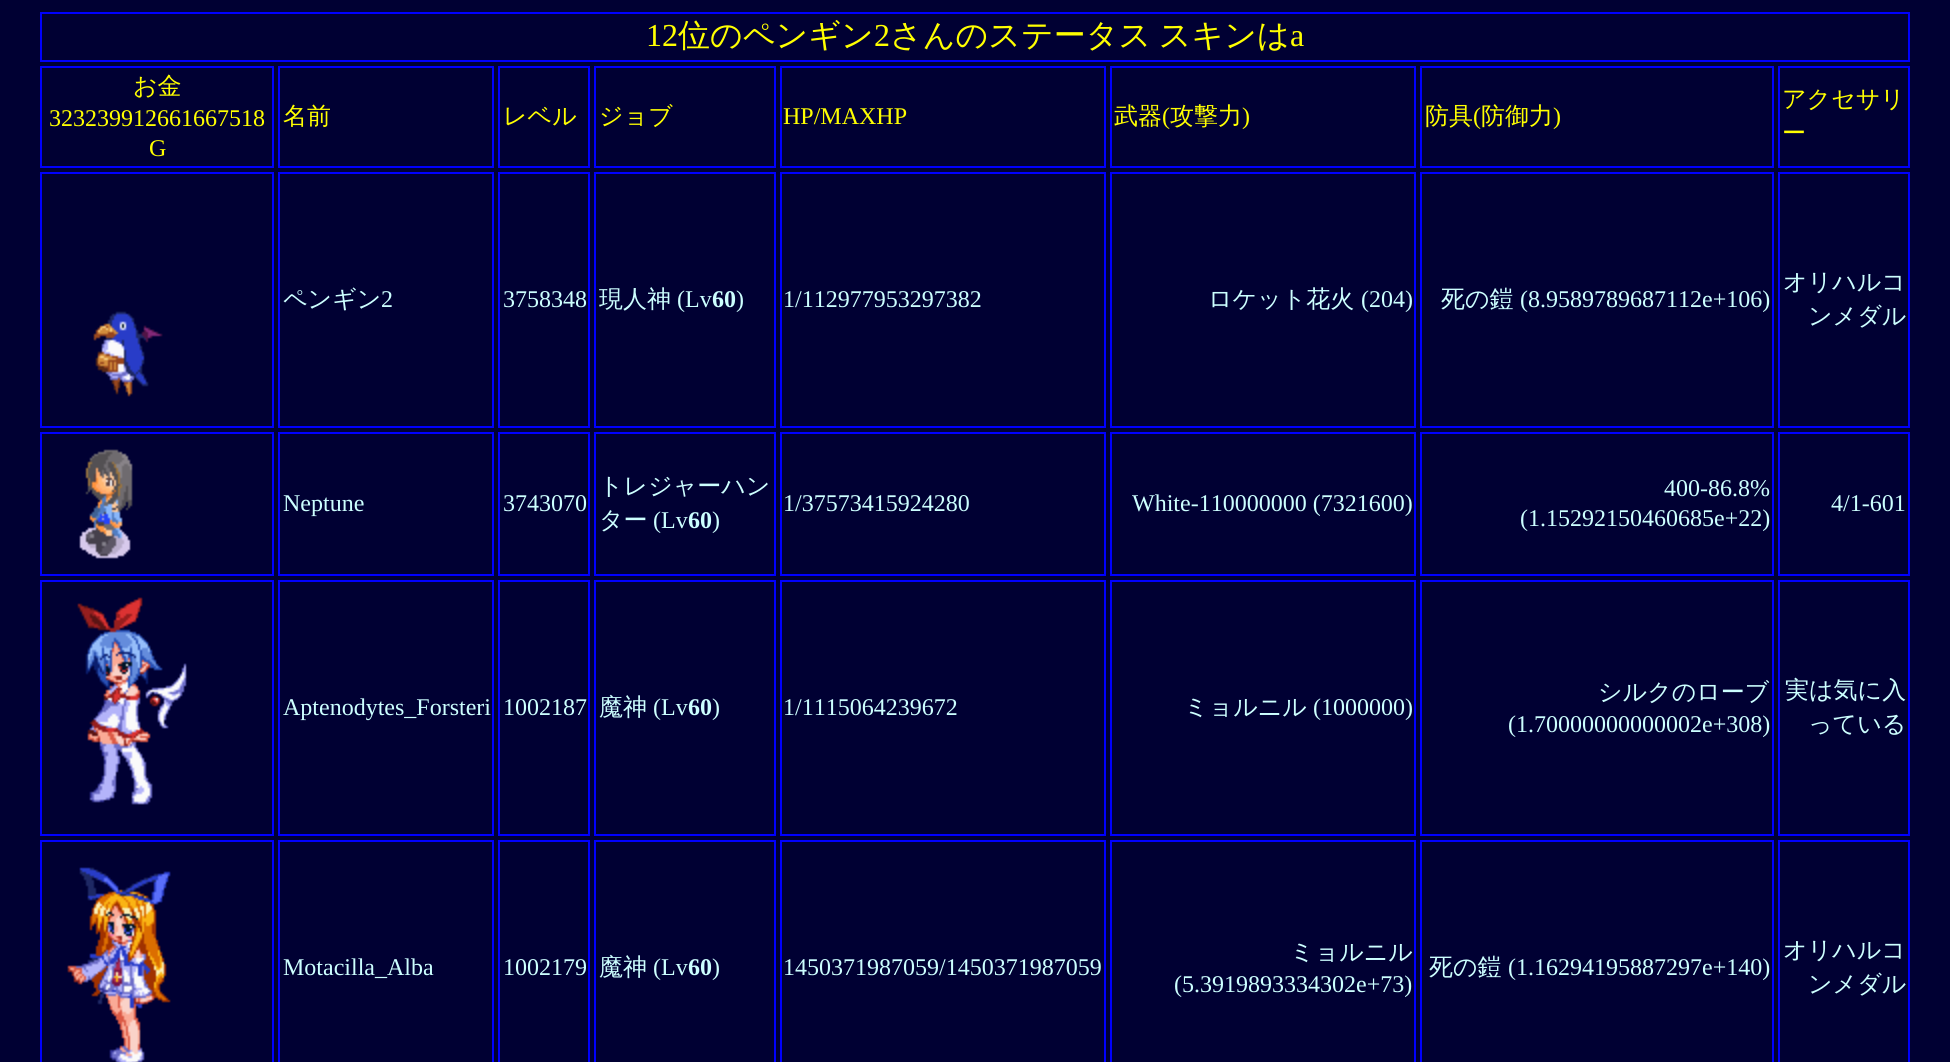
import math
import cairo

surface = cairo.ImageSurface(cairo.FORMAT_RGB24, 1950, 1062)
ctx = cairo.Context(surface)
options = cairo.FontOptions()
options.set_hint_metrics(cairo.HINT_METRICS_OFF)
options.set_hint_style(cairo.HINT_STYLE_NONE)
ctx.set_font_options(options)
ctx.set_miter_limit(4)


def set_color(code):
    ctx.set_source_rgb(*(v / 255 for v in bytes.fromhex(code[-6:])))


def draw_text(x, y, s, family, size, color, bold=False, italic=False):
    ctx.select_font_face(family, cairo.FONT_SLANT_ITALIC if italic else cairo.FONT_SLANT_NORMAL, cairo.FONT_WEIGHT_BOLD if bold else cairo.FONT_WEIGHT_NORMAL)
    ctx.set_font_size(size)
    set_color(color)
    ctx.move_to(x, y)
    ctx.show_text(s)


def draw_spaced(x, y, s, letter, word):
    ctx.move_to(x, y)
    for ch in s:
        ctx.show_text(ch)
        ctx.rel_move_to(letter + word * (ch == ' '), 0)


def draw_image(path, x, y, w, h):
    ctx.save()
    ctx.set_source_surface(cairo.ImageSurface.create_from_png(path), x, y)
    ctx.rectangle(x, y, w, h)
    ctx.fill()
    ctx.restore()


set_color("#000033")
ctx.paint()
ctx.rectangle(41, 13, 1868, 48)
set_color("#0000ff")
ctx.stroke()
draw_text(646, 46, "12", "Liberation Serif", 32, "#ffff00")
draw_text(678, 46, "位のペンギン", "WenQuanYi Zen Hei Medium", 32, "#ffff00")
draw_text(874, 46, "2", "Liberation Serif", 32, "#ffff00")
ctx.select_font_face("WenQuanYi Zen Hei Medium")
draw_spaced(890, 46, "さんのステータス スキンは", 0, -2)
draw_text(1290, 46, "a", "Liberation Serif", 32, "#ffff00")
ctx.rectangle(41, 67, 232, 100)
set_color("#0000ff")
ctx.stroke()
draw_text(133, 94, "お金", "WenQuanYi Zen Hei Medium", 24, "#ffff00")
draw_text(49, 126, "323239912661667518", "Liberation Serif", 24, "#ffff00")
draw_text(149, 156, "G", "Liberation Serif", 24, "#ffff00")
ctx.rectangle(279, 67, 214, 100)
set_color("#0000ff")
ctx.stroke()
draw_text(283, 124, "名前", "WenQuanYi Zen Hei Medium", 24, "#ffff00")
ctx.rectangle(499, 67, 90, 100)
set_color("#0000ff")
ctx.stroke()
draw_text(503, 124, "レベル", "WenQuanYi Zen Hei Medium", 24, "#ffff00")
ctx.rectangle(595, 67, 180, 100)
set_color("#0000ff")
ctx.stroke()
draw_text(599, 124, "ジョブ", "WenQuanYi Zen Hei Medium", 24, "#ffff00")
ctx.rectangle(781, 67, 324, 100)
set_color("#0000ff")
ctx.stroke()
draw_text(783, 124, "HP/MAXHP", "Liberation Serif", 24, "#ffff00")
ctx.rectangle(1111, 67, 304, 100)
set_color("#0000ff")
ctx.stroke()
draw_text(1114, 124, "武器", "WenQuanYi Zen Hei Medium", 24, "#ffff00")
draw_text(1162, 124, "(", "Liberation Serif", 24, "#ffff00")
draw_text(1170, 124, "攻撃力", "WenQuanYi Zen Hei Medium", 24, "#ffff00")
draw_text(1242, 124, ")", "Liberation Serif", 24, "#ffff00")
ctx.rectangle(1421, 67, 352, 100)
set_color("#0000ff")
ctx.stroke()
draw_text(1425, 124, "防具", "WenQuanYi Zen Hei Medium", 24, "#ffff00")
draw_text(1473, 124, "(", "Liberation Serif", 24, "#ffff00")
draw_text(1481, 124, "防御力", "WenQuanYi Zen Hei Medium", 24, "#ffff00")
draw_text(1553, 124, ")", "Liberation Serif", 24, "#ffff00")
ctx.rectangle(1779, 67, 130, 100)
set_color("#0000ff")
ctx.stroke()
draw_text(1782, 107, "アクセサリ", "WenQuanYi Zen Hei Medium", 24, "#ffff00")
draw_text(1782, 141, "ー", "WenQuanYi Zen Hei Medium", 24, "#ffff00")
ctx.rectangle(41, 173, 232, 254)
set_color("#0000ff")
ctx.stroke()
draw_image("assets/img1.png", 93, 311, 70, 86)
ctx.rectangle(279, 173, 214, 254)
ctx.stroke()
draw_text(283, 307, "ペンギン", "WenQuanYi Zen Hei Medium", 24, "#ccffff")
draw_text(381, 307, "2", "Liberation Serif", 24, "#ccffff")
ctx.rectangle(499, 173, 90, 254)
set_color("#0000ff")
ctx.stroke()
draw_text(503, 307, "3758348", "Liberation Serif", 24, "#ccffff")
ctx.rectangle(595, 173, 180, 254)
set_color("#0000ff")
ctx.stroke()
draw_text(599, 307, "現人神", "WenQuanYi Zen Hei Medium", 24, "#ccffff")
draw_text(677, 307, "(Lv", "Liberation Serif", 24, "#ccffff")
draw_text(712, 307, "60", "Liberation Serif", 24, "#ccffff", bold=True)
draw_text(736, 307, ")", "Liberation Serif", 24, "#ccffff")
ctx.rectangle(781, 173, 324, 254)
set_color("#0000ff")
ctx.stroke()
draw_text(783, 307, "1/112977953297382", "Liberation Serif", 24, "#ccffff")
ctx.rectangle(1111, 173, 304, 254)
set_color("#0000ff")
ctx.stroke()
draw_text(1208, 307, "ロケット花火", "WenQuanYi Zen Hei Medium", 24, "#ccffff")
draw_text(1361, 307, "(204)", "Liberation Serif", 24, "#ccffff")
ctx.rectangle(1421, 173, 352, 254)
set_color("#0000ff")
ctx.stroke()
draw_text(1441, 307, "死の鎧", "WenQuanYi Zen Hei Medium", 24, "#ccffff")
draw_text(1520, 307, "(8.9589789687112e+106)", "Liberation Serif", 24, "#ccffff")
ctx.rectangle(1779, 173, 130, 254)
set_color("#0000ff")
ctx.stroke()
draw_text(1783, 290, "オリハルコ", "WenQuanYi Zen Hei Medium", 24, "#ccffff")
draw_text(1808, 324, "ンメダル", "WenQuanYi Zen Hei Medium", 24, "#ccffff")
ctx.rectangle(41, 433, 232, 142)
set_color("#0000ff")
ctx.stroke()
draw_image("assets/img2.png", 79, 449, 54, 110)
ctx.rectangle(279, 433, 214, 142)
ctx.stroke()
draw_text(283, 511, "Neptune", "Liberation Serif", 24, "#ccffff")
ctx.rectangle(499, 433, 90, 142)
set_color("#0000ff")
ctx.stroke()
draw_text(503, 511, "3743070", "Liberation Serif", 24, "#ccffff")
ctx.rectangle(595, 433, 180, 142)
set_color("#0000ff")
ctx.stroke()
draw_text(599, 494, "トレジャーハン", "WenQuanYi Zen Hei Medium", 24, "#ccffff")
draw_text(599, 528, "ター", "WenQuanYi Zen Hei Medium", 24, "#ccffff")
draw_text(653, 528, "(Lv", "Liberation Serif", 24, "#ccffff")
draw_text(688, 528, "60", "Liberation Serif", 24, "#ccffff", bold=True)
draw_text(712, 528, ")", "Liberation Serif", 24, "#ccffff")
ctx.rectangle(781, 433, 324, 142)
set_color("#0000ff")
ctx.stroke()
draw_text(783, 511, "1/37573415924280", "Liberation Serif", 24, "#ccffff")
ctx.rectangle(1111, 433, 304, 142)
set_color("#0000ff")
ctx.stroke()
draw_text(1132, 511, "White-110000000 (7321600)", "Liberation Serif", 24, "#ccffff")
ctx.rectangle(1421, 433, 352, 142)
set_color("#0000ff")
ctx.stroke()
draw_text(1664, 496, "400-86.8%", "Liberation Serif", 24, "#ccffff")
draw_text(1520, 526, "(1.15292150460685e+22)", "Liberation Serif", 24, "#ccffff")
ctx.rectangle(1779, 433, 130, 142)
set_color("#0000ff")
ctx.stroke()
draw_text(1831, 511, "4/1-601", "Liberation Serif", 24, "#ccffff")
ctx.rectangle(41, 581, 232, 254)
set_color("#0000ff")
ctx.stroke()
draw_image("assets/img3.png", 77, 597, 110, 208)
ctx.rectangle(279, 581, 214, 254)
ctx.stroke()
draw_text(283, 715, "Aptenodytes_Forsteri", "Liberation Serif", 24, "#ccffff")
ctx.rectangle(499, 581, 90, 254)
set_color("#0000ff")
ctx.stroke()
draw_text(503, 715, "1002187", "Liberation Serif", 24, "#ccffff")
ctx.rectangle(595, 581, 180, 254)
set_color("#0000ff")
ctx.stroke()
draw_text(599, 715, "魔神", "WenQuanYi Zen Hei Medium", 24, "#ccffff")
draw_text(653, 715, "(Lv", "Liberation Serif", 24, "#ccffff")
draw_text(688, 715, "60", "Liberation Serif", 24, "#ccffff", bold=True)
draw_text(712, 715, ")", "Liberation Serif", 24, "#ccffff")
ctx.rectangle(781, 581, 324, 254)
set_color("#0000ff")
ctx.stroke()
draw_text(783, 715, "1/1115064239672", "Liberation Serif", 24, "#ccffff")
ctx.rectangle(1111, 581, 304, 254)
set_color("#0000ff")
ctx.stroke()
draw_text(1184, 715, "ミョルニル", "WenQuanYi Zen Hei Medium", 24, "#ccffff")
draw_text(1313, 715, "(1000000)", "Liberation Serif", 24, "#ccffff")
ctx.rectangle(1421, 581, 352, 254)
set_color("#0000ff")
ctx.stroke()
draw_text(1598, 700, "シルクのローブ", "WenQuanYi Zen Hei Medium", 24, "#ccffff")
draw_text(1508, 732, "(1.70000000000002e+308)", "Liberation Serif", 24, "#ccffff")
ctx.rectangle(1779, 581, 130, 254)
set_color("#0000ff")
ctx.stroke()
draw_text(1785, 698, "実は気に入", "WenQuanYi Zen Hei Medium", 24, "#ccffff")
draw_text(1808, 732, "っている", "WenQuanYi Zen Hei Medium", 24, "#ccffff")
ctx.rectangle(41, 841, 232, 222)
set_color("#0000ff")
ctx.stroke()
draw_image("assets/img4.png", 67, 867, 104, 195)
ctx.rectangle(279, 841, 214, 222)
ctx.stroke()
draw_text(283, 975, "Motacilla_Alba", "Liberation Serif", 24, "#ccffff")
ctx.rectangle(499, 841, 90, 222)
set_color("#0000ff")
ctx.stroke()
draw_text(503, 975, "1002179", "Liberation Serif", 24, "#ccffff")
ctx.rectangle(595, 841, 180, 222)
set_color("#0000ff")
ctx.stroke()
draw_text(599, 975, "魔神", "WenQuanYi Zen Hei Medium", 24, "#ccffff")
draw_text(653, 975, "(Lv", "Liberation Serif", 24, "#ccffff")
draw_text(688, 975, "60", "Liberation Serif", 24, "#ccffff", bold=True)
draw_text(712, 975, ")", "Liberation Serif", 24, "#ccffff")
ctx.rectangle(781, 841, 324, 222)
set_color("#0000ff")
ctx.stroke()
draw_text(783, 975, "1450371987059/1450371987059", "Liberation Serif", 24, "#ccffff")
ctx.rectangle(1111, 841, 304, 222)
set_color("#0000ff")
ctx.stroke()
draw_text(1290, 960, "ミョルニル", "WenQuanYi Zen Hei Medium", 24, "#ccffff")
draw_text(1174, 992, "(5.3919893334302e+73)", "Liberation Serif", 24, "#ccffff")
ctx.rectangle(1421, 841, 352, 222)
set_color("#0000ff")
ctx.stroke()
draw_text(1429, 975, "死の鎧", "WenQuanYi Zen Hei Medium", 24, "#ccffff")
draw_text(1508, 975, "(1.16294195887297e+140)", "Liberation Serif", 24, "#ccffff")
ctx.rectangle(1779, 841, 130, 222)
set_color("#0000ff")
ctx.stroke()
draw_text(1783, 958, "オリハルコ", "WenQuanYi Zen Hei Medium", 24, "#ccffff")
draw_text(1808, 992, "ンメダル", "WenQuanYi Zen Hei Medium", 24, "#ccffff")
surface.write_to_png("output.png")
